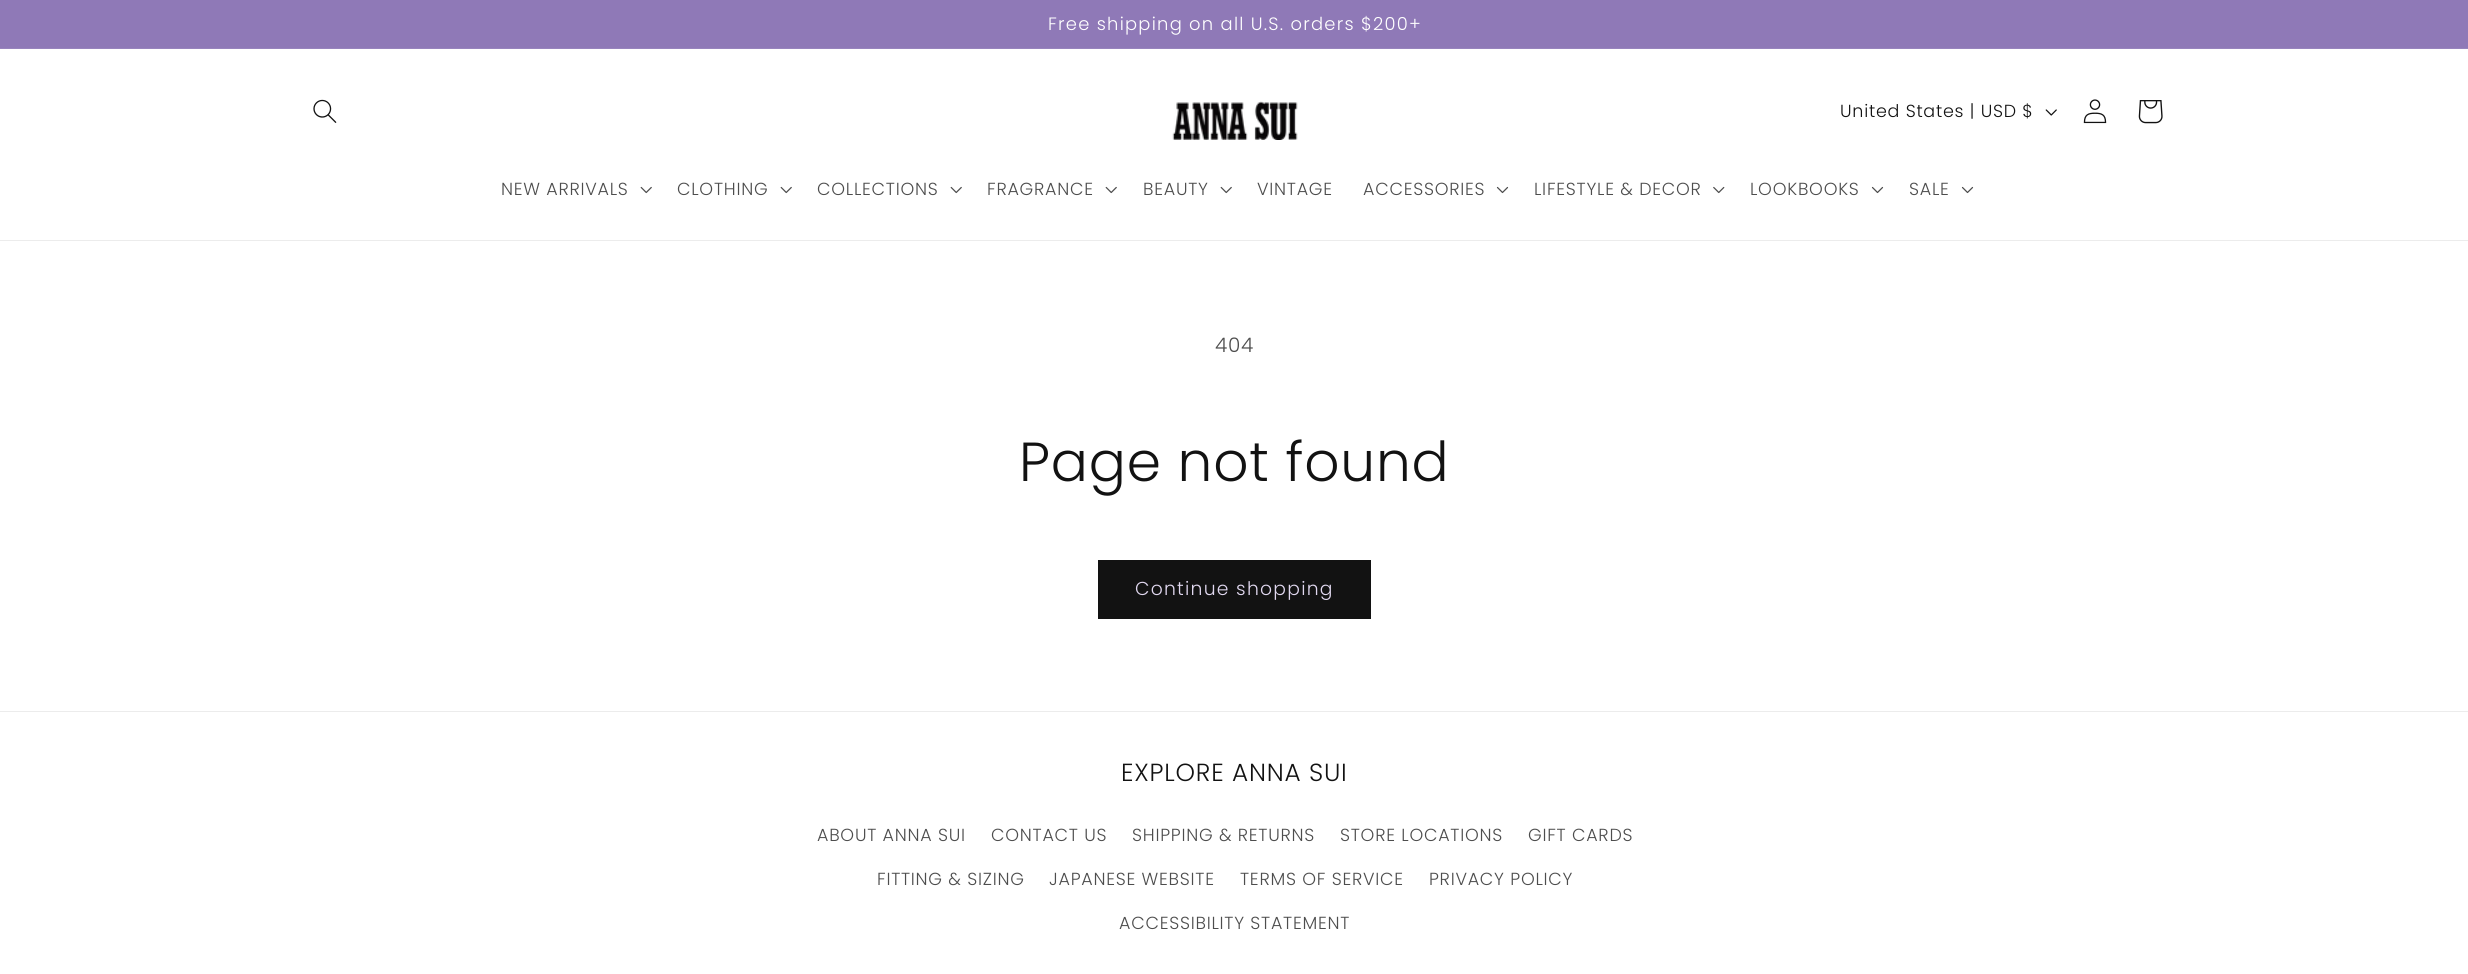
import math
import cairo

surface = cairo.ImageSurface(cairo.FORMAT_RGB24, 2468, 974)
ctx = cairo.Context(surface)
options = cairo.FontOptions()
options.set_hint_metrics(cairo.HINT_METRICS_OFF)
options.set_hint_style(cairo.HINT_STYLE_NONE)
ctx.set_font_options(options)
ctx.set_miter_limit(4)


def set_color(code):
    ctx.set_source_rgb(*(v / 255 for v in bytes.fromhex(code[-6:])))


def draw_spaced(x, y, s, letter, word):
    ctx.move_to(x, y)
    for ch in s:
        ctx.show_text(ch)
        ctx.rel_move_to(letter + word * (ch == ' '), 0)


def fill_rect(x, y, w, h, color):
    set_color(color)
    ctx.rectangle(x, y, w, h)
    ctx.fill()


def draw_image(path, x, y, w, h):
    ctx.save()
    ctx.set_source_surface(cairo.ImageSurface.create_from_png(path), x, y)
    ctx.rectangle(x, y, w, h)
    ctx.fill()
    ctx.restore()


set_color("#ffffff")
ctx.paint()
fill_rect(0, 0, 2468, 48, "#8f79b7")
fill_rect(0, 48, 2468, 1, "#9884bd")
ctx.select_font_face("Poppins Light")
ctx.set_font_size(17.9)
set_color("#ffffff")
draw_spaced(1048, 30, "Free shipping on all U.S. orders $200+", 1.25, 0)
fill_rect(0, 240, 2468, 1, "#ececec")
draw_image("assets/img1.png", 313, 99, 24, 24)
draw_image("assets/img2.png", 1172, 101, 126, 39)
ctx.set_font_size(17.5)
set_color("#121212")
draw_spaced(1840, 117, "United States | USD $", 0.75, 0)
draw_image("assets/img3.png", 2045, 109, 12, 7)
draw_image("assets/img4.png", 2083, 99, 24, 25)
draw_image("assets/img5.png", 2138, 100, 25, 24)
set_color("#4d4d4d")
draw_spaced(501, 195, "NEW ARRIVALS", 0.75, 0)
draw_image("assets/img6.png", 640, 186, 12, 8)
draw_spaced(677, 195, "CLOTHING", 0.75, 0)
draw_image("assets/img6.png", 780, 186, 12, 8)
draw_spaced(817, 195, "COLLECTIONS", 0.75, 0)
draw_image("assets/img6.png", 950, 186, 12, 8)
draw_spaced(987, 195, "FRAGRANCE", 0.75, 0)
draw_image("assets/img6.png", 1105, 186, 12, 8)
draw_spaced(1143, 195, "BEAUTY", 0.75, 0)
draw_image("assets/img6.png", 1220, 186, 12, 8)
draw_spaced(1257, 195, "VINTAGE", 0.75, 0)
draw_spaced(1363, 195, "ACCESSORIES", 0.75, 0)
draw_image("assets/img7.png", 1496, 186, 13, 8)
draw_spaced(1534, 195, "LIFESTYLE & DECOR", 0.75, 0)
draw_image("assets/img8.png", 1713, 186, 12, 8)
draw_spaced(1750, 195, "LOOKBOOKS", 0.75, 0)
draw_image("assets/img7.png", 1871, 186, 13, 8)
draw_spaced(1909, 195, "SALE", 0.75, 0)
draw_image("assets/img7.png", 1961, 186, 13, 8)
ctx.set_font_size(20)
draw_spaced(1215, 352, "404", 0.75, 0)
ctx.set_font_size(55)
set_color("#121212")
draw_spaced(1019, 481, "Page not found", 0.8, 0)
fill_rect(1098, 560, 273, 59, "#121212")
ctx.set_font_size(18.75)
set_color("#e1d8f0")
draw_spaced(1135, 595, "Continue shopping", 1.25, 0)
fill_rect(0, 711, 2468, 1, "#ececec")
ctx.set_font_size(24.75)
set_color("#121212")
draw_spaced(1121, 781, "EXPLORE ANNA SUI", 0.8, 0)
ctx.set_font_size(17.5)
set_color("#4d4d4d")
draw_spaced(817, 841, "ABOUT ANNA SUI", 0.75, 0)
draw_spaced(991, 841, "CONTACT US", 0.75, 0)
draw_spaced(1132, 841, "SHIPPING & RETURNS", 0.75, 0)
draw_spaced(1340, 841, "STORE LOCATIONS", 0.75, 0)
draw_spaced(1528, 841, "GIFT CARDS", 0.75, 0)
draw_spaced(877, 885, "FITTING & SIZING", 0.75, 0)
draw_spaced(1049, 885, "JAPANESE WEBSITE", 0.75, 0)
draw_spaced(1240, 885, "TERMS OF SERVICE", 0.75, 0)
draw_spaced(1429, 885, "PRIVACY POLICY", 0.75, 0)
draw_spaced(1119, 929, "ACCESSIBILITY STATEMENT", 0.75, 0)
surface.write_to_png("output.png")
